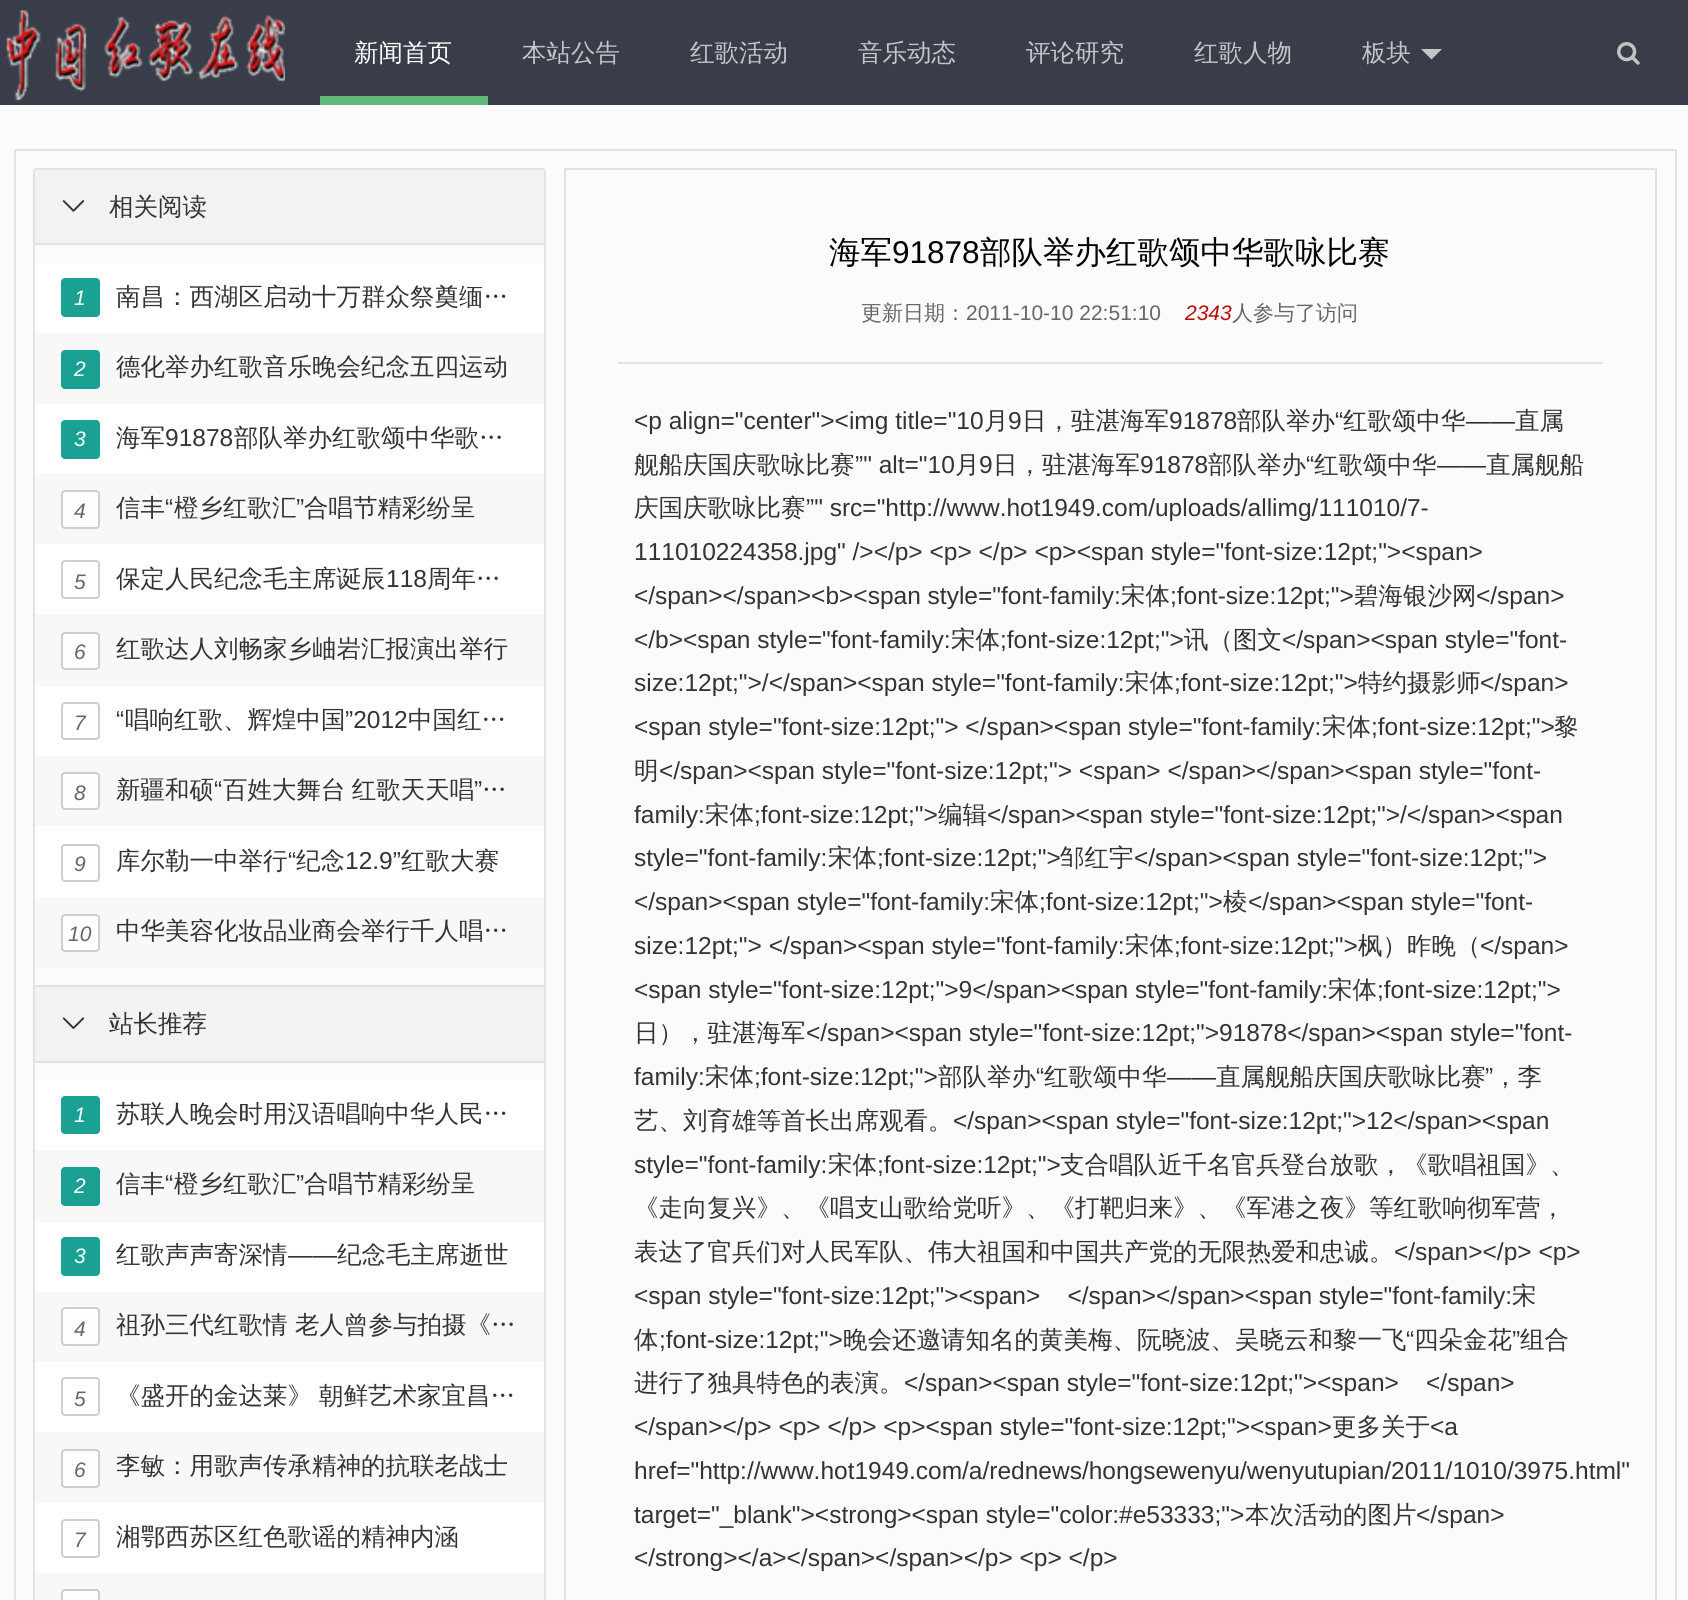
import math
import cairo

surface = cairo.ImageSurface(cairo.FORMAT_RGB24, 1688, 1600)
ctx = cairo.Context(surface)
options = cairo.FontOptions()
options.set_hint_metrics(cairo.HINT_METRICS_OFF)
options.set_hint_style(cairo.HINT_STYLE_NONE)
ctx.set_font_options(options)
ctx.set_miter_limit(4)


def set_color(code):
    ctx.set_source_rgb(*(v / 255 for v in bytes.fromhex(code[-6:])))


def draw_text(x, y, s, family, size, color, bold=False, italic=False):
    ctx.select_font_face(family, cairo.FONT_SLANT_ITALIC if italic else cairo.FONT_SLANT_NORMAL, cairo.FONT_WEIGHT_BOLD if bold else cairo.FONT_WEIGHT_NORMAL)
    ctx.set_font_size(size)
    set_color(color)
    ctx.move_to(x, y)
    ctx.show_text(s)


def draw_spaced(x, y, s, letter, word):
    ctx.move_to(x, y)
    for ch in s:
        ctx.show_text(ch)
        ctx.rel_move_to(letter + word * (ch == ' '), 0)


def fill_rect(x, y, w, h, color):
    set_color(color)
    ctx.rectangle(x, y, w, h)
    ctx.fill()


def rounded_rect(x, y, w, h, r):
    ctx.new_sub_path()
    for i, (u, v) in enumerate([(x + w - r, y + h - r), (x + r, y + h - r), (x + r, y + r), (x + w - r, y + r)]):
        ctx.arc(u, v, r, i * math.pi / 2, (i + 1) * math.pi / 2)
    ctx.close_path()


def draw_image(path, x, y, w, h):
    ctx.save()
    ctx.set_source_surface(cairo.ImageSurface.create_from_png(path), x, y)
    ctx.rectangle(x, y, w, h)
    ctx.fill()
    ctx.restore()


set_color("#fbfbfb")
ctx.paint()
fill_rect(0, 0, 1688, 105, "#393d49")
draw_image("assets/img1.png", 6, 10, 279, 91)
draw_text(354, 61, "新闻首页", "WenQuanYi Zen Hei Medium", 24.5, "#ffffff")
fill_rect(320, 96, 168, 9, "#5fb878")
draw_text(522, 61, "本站公告", "WenQuanYi Zen Hei Medium", 24.5, "#c4c5c8")
draw_text(690, 61, "红歌活动", "WenQuanYi Zen Hei Medium", 24.5, "#c4c5c8")
draw_text(858, 61, "音乐动态", "WenQuanYi Zen Hei Medium", 24.5, "#c4c5c8")
draw_text(1026, 61, "评论研究", "WenQuanYi Zen Hei Medium", 24.5, "#c4c5c8")
draw_text(1194, 61, "红歌人物", "WenQuanYi Zen Hei Medium", 24.5, "#c4c5c8")
draw_text(1362, 61, "板块", "WenQuanYi Zen Hei Medium", 24.5, "#c4c5c8")
ctx.new_path()
ctx.move_to(1421, 49)
ctx.line_to(1442, 49)
ctx.line_to(1431.5, 59.5)
ctx.close_path()
ctx.fill()
draw_image("assets/img2.png", 1617, 42, 23, 23)
ctx.rectangle(15, 150, 1661, 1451)
set_color("#e2e2e2")
ctx.stroke()
rounded_rect(34, 169, 511, 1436, 3)
ctx.stroke()
fill_rect(35, 170, 509, 73, "#f2f2f2")
draw_image("assets/img3.png", 62, 200, 23, 12)
draw_text(109, 215, "相关阅读", "WenQuanYi Zen Hei Medium", 24.5, "#333333")
fill_rect(35, 243, 509, 2, "#e2e2e2")
fill_rect(35, 263, 509, 635, "#ffffff")
set_color("#1aa194")
rounded_rect(61, 278, 39, 39, 4)
ctx.fill()
draw_text(74, 305, "1", "Liberation Sans", 21, "#ffffff", italic=True)
draw_text(116, 305, "南昌：西湖区启动十万群众祭奠缅…", "WenQuanYi Zen Hei Medium", 24.5, "#333333")
fill_rect(35, 333, 509, 71, "#f8f8f8")
set_color("#19a093")
rounded_rect(61, 350, 39, 39, 4)
ctx.fill()
draw_text(74, 376, "2", "Liberation Sans", 21, "#ffffff", italic=True)
draw_text(116, 375, "德化举办红歌音乐晚会纪念五四运动", "WenQuanYi Zen Hei Medium", 24.5, "#333333")
set_color("#1aa194")
rounded_rect(61, 420, 39, 39, 4)
ctx.fill()
draw_text(74, 446, "3", "Liberation Sans", 21, "#ffffff", italic=True)
draw_text(116, 446, "海军", "WenQuanYi Zen Hei Medium", 24.5, "#333333")
draw_text(165, 446, "91878", "Liberation Sans", 24.5, "#333333")
draw_text(234, 446, "部队举办红歌颂中华歌…", "WenQuanYi Zen Hei Medium", 24.5, "#333333")
fill_rect(35, 474, 509, 70, "#f8f8f8")
draw_text(116, 516, "信丰", "WenQuanYi Zen Hei Medium", 24.5, "#333333")
draw_text(165, 516, "“", "Liberation Sans", 24.5, "#333333")
draw_text(174, 516, "橙乡红歌汇", "WenQuanYi Zen Hei Medium", 24.5, "#333333")
draw_text(296, 516, "”", "Liberation Sans", 24.5, "#333333")
draw_text(304, 516, "合唱节精彩纷呈", "WenQuanYi Zen Hei Medium", 24.5, "#333333")
set_color("#fefefe")
rounded_rect(62, 491, 37, 37, 3)
ctx.fill_preserve()
set_color("#cecece")
ctx.stroke()
draw_text(74, 518, "4", "Liberation Sans", 21, "#666666", italic=True)
rounded_rect(62, 561, 37, 37, 3)
set_color("#cecece")
ctx.stroke()
draw_text(74, 589, "5", "Liberation Sans", 21, "#666666", italic=True)
draw_text(116, 587, "保定人民纪念毛主席诞辰", "WenQuanYi Zen Hei Medium", 24.5, "#333333")
draw_text(386, 587, "118", "Liberation Sans", 24.5, "#333333")
draw_text(427, 587, "周年…", "WenQuanYi Zen Hei Medium", 24.5, "#333333")
fill_rect(35, 614, 509, 72, "#f8f8f8")
set_color("#fefefe")
rounded_rect(62, 633, 37, 36, 3)
ctx.fill_preserve()
set_color("#cecece")
ctx.stroke()
draw_text(74, 659, "6", "Liberation Sans", 21, "#666666", italic=True)
draw_text(116, 657, "红歌达人刘畅家乡岫岩汇报演出举行", "WenQuanYi Zen Hei Medium", 24.5, "#333333")
draw_text(116, 728, "“", "Liberation Sans", 24.5, "#333333")
draw_text(125, 728, "唱响红歌、辉煌中国", "WenQuanYi Zen Hei Medium", 24.5, "#333333")
draw_text(345, 728, "”2012", "Liberation Sans", 24.5, "#333333")
draw_text(408, 728, "中国红…", "WenQuanYi Zen Hei Medium", 24.5, "#333333")
rounded_rect(62, 703, 37, 36, 3)
set_color("#cecece")
ctx.stroke()
draw_text(74, 730, "7", "Liberation Sans", 21, "#666666", italic=True)
fill_rect(35, 756, 509, 70, "#f8f8f8")
draw_text(116, 798, "新疆和硕", "WenQuanYi Zen Hei Medium", 24.5, "#333333")
draw_text(214, 798, "“", "Liberation Sans", 24.5, "#333333")
ctx.select_font_face("WenQuanYi Zen Hei Medium")
draw_spaced(223, 798, "百姓大舞台 红歌天天唱", 0, -1)
draw_text(474, 798, "”", "Liberation Sans", 24.5, "#333333")
set_color("#fefefe")
rounded_rect(62, 773, 37, 36, 3)
ctx.fill_preserve()
set_color("#cecece")
ctx.stroke()
draw_text(74, 800, "8", "Liberation Sans", 21, "#666666", italic=True)
draw_text(482, 798, "…", "WenQuanYi Zen Hei Medium", 24.5, "#333333")
draw_text(116, 869, "库尔勒一中举行", "WenQuanYi Zen Hei Medium", 24.5, "#333333")
draw_text(288, 869, "“", "Liberation Sans", 24.5, "#333333")
draw_text(296, 869, "纪念", "WenQuanYi Zen Hei Medium", 24.5, "#333333")
draw_text(345, 869, "12.9”", "Liberation Sans", 24.5, "#333333")
draw_text(401, 869, "红歌大赛", "WenQuanYi Zen Hei Medium", 24.5, "#333333")
rounded_rect(62, 845, 37, 36, 3)
set_color("#cecece")
ctx.stroke()
draw_text(74, 871, "9", "Liberation Sans", 21, "#666666", italic=True)
fill_rect(35, 898, 509, 70, "#f8f8f8")
set_color("#fefefe")
rounded_rect(62, 915, 37, 36, 3)
ctx.fill_preserve()
set_color("#cecece")
ctx.stroke()
draw_text(68, 941, "10", "Liberation Sans", 21, "#666666", italic=True)
draw_text(116, 939, "中华美容化妆品业商会举行千人唱…", "WenQuanYi Zen Hei Medium", 24.5, "#333333")
fill_rect(35, 985, 509, 2, "#e2e2e2")
fill_rect(35, 987, 509, 74, "#f2f2f2")
draw_image("assets/img4.png", 62, 1017, 23, 12)
draw_text(109, 1032, "站长推荐", "WenQuanYi Zen Hei Medium", 24.5, "#333333")
fill_rect(35, 1061, 509, 2, "#e2e2e2")
fill_rect(35, 1080, 509, 493, "#ffffff")
set_color("#1aa194")
rounded_rect(61, 1096, 39, 38, 4)
ctx.fill()
draw_text(74, 1122, "1", "Liberation Sans", 21, "#ffffff", italic=True)
draw_text(116, 1122, "苏联人晚会时用汉语唱响中华人民…", "WenQuanYi Zen Hei Medium", 24.5, "#333333")
fill_rect(35, 1150, 509, 72, "#f8f8f8")
set_color("#19a093")
rounded_rect(61, 1167, 39, 39, 4)
ctx.fill()
draw_text(74, 1193, "2", "Liberation Sans", 21, "#ffffff", italic=True)
draw_text(116, 1192, "信丰", "WenQuanYi Zen Hei Medium", 24.5, "#333333")
draw_text(165, 1192, "“", "Liberation Sans", 24.5, "#333333")
draw_text(174, 1192, "橙乡红歌汇", "WenQuanYi Zen Hei Medium", 24.5, "#333333")
draw_text(296, 1192, "”", "Liberation Sans", 24.5, "#333333")
draw_text(304, 1192, "合唱节精彩纷呈", "WenQuanYi Zen Hei Medium", 24.5, "#333333")
set_color("#1aa194")
rounded_rect(61, 1237, 39, 39, 4)
ctx.fill()
draw_text(74, 1263, "3", "Liberation Sans", 21, "#ffffff", italic=True)
draw_text(116, 1263, "红歌声声寄深情", "WenQuanYi Zen Hei Medium", 24.5, "#333333")
draw_text(288, 1263, "——", "Liberation Sans", 24.5, "#333333")
draw_text(337, 1263, "纪念毛主席逝世", "WenQuanYi Zen Hei Medium", 24.5, "#333333")
fill_rect(35, 1292, 509, 70, "#f8f8f8")
set_color("#fefefe")
rounded_rect(62, 1308, 37, 37, 3)
ctx.fill_preserve()
set_color("#cecece")
ctx.stroke()
draw_text(74, 1336, "4", "Liberation Sans", 21, "#666666", italic=True)
draw_text(116, 1333, "祖孙三代红歌情", "WenQuanYi Zen Hei Medium", 24.5, "#333333")
draw_text(295, 1333, "老人曾参与拍摄《…", "WenQuanYi Zen Hei Medium", 24.5, "#333333")
rounded_rect(62, 1378, 37, 37, 3)
set_color("#cecece")
ctx.stroke()
draw_text(74, 1406, "5", "Liberation Sans", 21, "#666666", italic=True)
draw_text(116, 1404, "《盛开的金达莱》", "WenQuanYi Zen Hei Medium", 24.5, "#333333")
draw_text(319, 1404, "朝鲜艺术家宜昌…", "WenQuanYi Zen Hei Medium", 24.5, "#333333")
fill_rect(35, 1432, 509, 71, "#f8f8f8")
set_color("#fefefe")
rounded_rect(62, 1450, 37, 37, 3)
ctx.fill_preserve()
set_color("#cecece")
ctx.stroke()
draw_text(74, 1477, "6", "Liberation Sans", 21, "#666666", italic=True)
draw_text(116, 1474, "李敏：用歌声传承精神的抗联老战士", "WenQuanYi Zen Hei Medium", 24.5, "#333333")
rounded_rect(62, 1520, 37, 37, 3)
set_color("#cecece")
ctx.stroke()
draw_text(74, 1547, "7", "Liberation Sans", 21, "#666666", italic=True)
draw_text(116, 1545, "湘鄂西苏区红色歌谣的精神内涵", "WenQuanYi Zen Hei Medium", 24.5, "#333333")
fill_rect(35, 1573, 509, 27, "#f8f8f8")
set_color("#fefefe")
rounded_rect(62, 1590, 37, 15, 3)
ctx.fill_preserve()
set_color("#cecece")
ctx.stroke()
ctx.rectangle(565, 169, 1091, 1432)
set_color("#e2e2e2")
ctx.stroke()
draw_text(829, 263, "海军", "WenQuanYi Zen Hei Medium", 31.5, "#000000")
draw_text(892, 263, "91878", "Liberation Sans", 31.5, "#000000")
draw_text(980, 263, "部队举办红歌颂中华歌咏比赛", "WenQuanYi Zen Hei Medium", 31.5, "#000000")
draw_text(861, 320, "更新日期：", "WenQuanYi Zen Hei Medium", 21, "#666666")
draw_text(966, 320, "2011-10-10 22:51:10", "Liberation Sans", 21, "#666666")
draw_text(1185, 320, "2343", "Liberation Sans", 21, "#b60c0c", italic=True)
draw_text(1232, 320, "人参与了访问", "WenQuanYi Zen Hei Medium", 21, "#666666")
fill_rect(618, 362, 985, 2, "#e2e2e2")
draw_text(634, 429, "<p align=\"center\"><img title=\"10", "Liberation Sans", 24.5, "#333333")
draw_text(984, 429, "月", "WenQuanYi Zen Hei Medium", 24.5, "#333333")
draw_text(1008, 429, "9", "Liberation Sans", 24.5, "#333333")
draw_text(1022, 429, "日，驻湛海军", "WenQuanYi Zen Hei Medium", 24.5, "#333333")
draw_text(1169, 429, "91878", "Liberation Sans", 24.5, "#333333")
draw_text(1237, 429, "部队举办", "WenQuanYi Zen Hei Medium", 24.5, "#333333")
draw_text(1335, 429, "“", "Liberation Sans", 24.5, "#333333")
draw_text(1343, 429, "红歌颂中华", "WenQuanYi Zen Hei Medium", 24.5, "#333333")
draw_text(1515, 429, "直属", "WenQuanYi Zen Hei Medium", 24.5, "#333333")
draw_text(1466, 429, "——", "Liberation Sans", 24.5, "#333333")
draw_text(634, 473, "舰船庆国庆歌咏比赛", "WenQuanYi Zen Hei Medium", 24.5, "#333333")
draw_text(855, 473, "”\" alt=\"10", "Liberation Sans", 24.5, "#333333")
draw_text(955, 473, "月", "WenQuanYi Zen Hei Medium", 24.5, "#333333")
draw_text(979, 473, "9", "Liberation Sans", 24.5, "#333333")
draw_text(993, 473, "日，驻湛海军", "WenQuanYi Zen Hei Medium", 24.5, "#333333")
draw_text(1140, 473, "91878", "Liberation Sans", 24.5, "#333333")
draw_text(1208, 473, "部队举办", "WenQuanYi Zen Hei Medium", 24.5, "#333333")
draw_text(1306, 473, "“", "Liberation Sans", 24.5, "#333333")
draw_text(1314, 473, "红歌颂中华", "WenQuanYi Zen Hei Medium", 24.5, "#333333")
draw_text(1486, 473, "直属舰船", "WenQuanYi Zen Hei Medium", 24.5, "#333333")
draw_text(1437, 473, "——", "Liberation Sans", 24.5, "#333333")
draw_text(634, 516, "庆国庆歌咏比赛", "WenQuanYi Zen Hei Medium", 24.5, "#333333")
draw_text(806, 516, "”\" src=\"http://www.hot1949.com/uploads/allimg/111010/7-", "Liberation Sans", 24.5, "#333333")
draw_text(634, 560, "111010224358.jpg\" /></p> <p> </p> <p><span style=\"font-size:12pt;\"><span>", "Liberation Sans", 24.5, "#333333")
draw_text(634, 604, "</span></span><b><span style=\"font-family:", "Liberation Sans", 24.5, "#333333")
draw_text(1121, 604, "宋体", "WenQuanYi Zen Hei Medium", 24.5, "#333333")
draw_text(1170, 604, ";font-size:12pt;\">", "Liberation Sans", 24.5, "#333333")
draw_text(1354, 604, "碧海银沙网", "WenQuanYi Zen Hei Medium", 24.5, "#333333")
draw_text(1476, 604, "</span>", "Liberation Sans", 24.5, "#333333")
draw_text(634, 648, "</b><span style=\"font-family:", "Liberation Sans", 24.5, "#333333")
draw_text(951, 648, "宋体", "WenQuanYi Zen Hei Medium", 24.5, "#333333")
draw_text(1000, 648, ";font-size:12pt;\">", "Liberation Sans", 24.5, "#333333")
draw_text(1184, 648, "讯（图文", "WenQuanYi Zen Hei Medium", 24.5, "#333333")
draw_text(1282, 648, "</span><span style=\"font-", "Liberation Sans", 24.5, "#333333")
draw_text(634, 691, "size:12pt;\">/</span><span style=\"font-family:", "Liberation Sans", 24.5, "#333333")
draw_text(1125, 691, "宋体", "WenQuanYi Zen Hei Medium", 24.5, "#333333")
draw_text(1174, 691, ";font-size:12pt;\">", "Liberation Sans", 24.5, "#333333")
draw_text(1358, 691, "特约摄影师", "WenQuanYi Zen Hei Medium", 24.5, "#333333")
draw_text(1480, 691, "</span>", "Liberation Sans", 24.5, "#333333")
draw_text(634, 735, "<span style=\"font-size:12pt;\"> </span><span style=\"font-family:", "Liberation Sans", 24.5, "#333333")
draw_text(1322, 735, "宋体", "WenQuanYi Zen Hei Medium", 24.5, "#333333")
draw_text(1371, 735, ";font-size:12pt;\">", "Liberation Sans", 24.5, "#333333")
draw_text(1554, 735, "黎", "WenQuanYi Zen Hei Medium", 24.5, "#333333")
draw_text(634, 779, "明", "WenQuanYi Zen Hei Medium", 24.5, "#333333")
draw_text(659, 779, "</span><span style=\"font-size:12pt;\"> <span> </span></span><span style=\"font-", "Liberation Sans", 24.5, "#333333")
draw_text(634, 823, "family:", "Liberation Sans", 24.5, "#333333")
draw_text(705, 823, "宋体", "WenQuanYi Zen Hei Medium", 24.5, "#333333")
draw_text(754, 823, ";font-size:12pt;\">", "Liberation Sans", 24.5, "#333333")
draw_text(938, 823, "编辑", "WenQuanYi Zen Hei Medium", 24.5, "#333333")
draw_text(987, 823, "</span><span style=\"font-size:12pt;\">/</span><span", "Liberation Sans", 24.5, "#333333")
draw_text(634, 866, "style=\"font-family:", "Liberation Sans", 24.5, "#333333")
draw_text(828, 866, "宋体", "WenQuanYi Zen Hei Medium", 24.5, "#333333")
draw_text(877, 866, ";font-size:12pt;\">", "Liberation Sans", 24.5, "#333333")
draw_text(1060, 866, "邹红宇", "WenQuanYi Zen Hei Medium", 24.5, "#333333")
draw_text(1134, 866, "</span><span style=\"font-size:12pt;\">", "Liberation Sans", 24.5, "#333333")
draw_text(634, 910, "</span><span style=\"font-family:", "Liberation Sans", 24.5, "#333333")
draw_text(990, 910, "宋体", "WenQuanYi Zen Hei Medium", 24.5, "#333333")
draw_text(1039, 910, ";font-size:12pt;\">", "Liberation Sans", 24.5, "#333333")
draw_text(1223, 910, "棱", "WenQuanYi Zen Hei Medium", 24.5, "#333333")
draw_text(1248, 910, "</span><span style=\"font-", "Liberation Sans", 24.5, "#333333")
draw_text(634, 954, "size:12pt;\"> </span><span style=\"font-family:", "Liberation Sans", 24.5, "#333333")
draw_text(1125, 954, "宋体", "WenQuanYi Zen Hei Medium", 24.5, "#333333")
draw_text(1174, 954, ";font-size:12pt;\">", "Liberation Sans", 24.5, "#333333")
draw_text(1358, 954, "枫）昨晚（", "WenQuanYi Zen Hei Medium", 24.5, "#333333")
draw_text(1480, 954, "</span>", "Liberation Sans", 24.5, "#333333")
draw_text(634, 998, "<span style=\"font-size:12pt;\">9</span><span style=\"font-family:", "Liberation Sans", 24.5, "#333333")
draw_text(1328, 998, "宋体", "WenQuanYi Zen Hei Medium", 24.5, "#333333")
draw_text(1377, 998, ";font-size:12pt;\">", "Liberation Sans", 24.5, "#333333")
draw_text(634, 1041, "日），驻湛海军", "WenQuanYi Zen Hei Medium", 24.5, "#333333")
draw_text(806, 1041, "</span><span style=\"font-size:12pt;\">91878</span><span style=\"font-", "Liberation Sans", 24.5, "#333333")
draw_text(634, 1085, "family:", "Liberation Sans", 24.5, "#333333")
draw_text(705, 1085, "宋体", "WenQuanYi Zen Hei Medium", 24.5, "#333333")
draw_text(754, 1085, ";font-size:12pt;\">", "Liberation Sans", 24.5, "#333333")
draw_text(938, 1085, "部队举办", "WenQuanYi Zen Hei Medium", 24.5, "#333333")
draw_text(1036, 1085, "“", "Liberation Sans", 24.5, "#333333")
draw_text(1044, 1085, "红歌颂中华", "WenQuanYi Zen Hei Medium", 24.5, "#333333")
draw_text(1167, 1085, "——", "Liberation Sans", 24.5, "#333333")
draw_text(1216, 1085, "直属舰船庆国庆歌咏比赛", "WenQuanYi Zen Hei Medium", 24.5, "#333333")
draw_text(1485, 1085, "”", "Liberation Sans", 24.5, "#333333")
draw_text(1493, 1085, "，李", "WenQuanYi Zen Hei Medium", 24.5, "#333333")
draw_text(634, 1129, "艺、刘育雄等首长出席观看。", "WenQuanYi Zen Hei Medium", 24.5, "#333333")
draw_text(953, 1129, "</span><span style=\"font-size:12pt;\">12</span><span", "Liberation Sans", 24.5, "#333333")
draw_text(634, 1173, "style=\"font-family:", "Liberation Sans", 24.5, "#333333")
draw_text(828, 1173, "宋体", "WenQuanYi Zen Hei Medium", 24.5, "#333333")
draw_text(877, 1173, ";font-size:12pt;\">", "Liberation Sans", 24.5, "#333333")
draw_text(1060, 1173, "支合唱队近千名官兵登台放歌，《歌唱祖国》、", "WenQuanYi Zen Hei Medium", 24.5, "#333333")
draw_text(634, 1216, "《走向复兴》、《唱支山歌给党听》、《打靶归来》、《军港之夜》等红歌响彻军营，", "WenQuanYi Zen Hei Medium", 24.5, "#333333")
draw_text(634, 1260, "表达了官兵们对人民军队、伟大祖国和中国共产党的无限热爱和忠诚。", "WenQuanYi Zen Hei Medium", 24.5, "#333333")
draw_text(1394, 1260, "</span></p> <p>", "Liberation Sans", 24.5, "#333333")
draw_text(634, 1304, "<span style=\"font-size:12pt;\"><span>    </span></span><span style=\"font-family:", "Liberation Sans", 24.5, "#333333")
draw_text(1512, 1304, "宋", "WenQuanYi Zen Hei Medium", 24.5, "#333333")
draw_text(634, 1348, "体", "WenQuanYi Zen Hei Medium", 24.5, "#333333")
draw_text(659, 1348, ";font-size:12pt;\">", "Liberation Sans", 24.5, "#333333")
draw_text(843, 1348, "晚会还邀请知名的黄美梅、阮晓波、吴晓云和黎一飞", "WenQuanYi Zen Hei Medium", 24.5, "#333333")
draw_text(1406, 1348, "“", "Liberation Sans", 24.5, "#333333")
draw_text(1414, 1348, "四朵金花", "WenQuanYi Zen Hei Medium", 24.5, "#333333")
draw_text(1512, 1348, "”", "Liberation Sans", 24.5, "#333333")
draw_text(1520, 1348, "组合", "WenQuanYi Zen Hei Medium", 24.5, "#333333")
draw_text(634, 1391, "进行了独具特色的表演。", "WenQuanYi Zen Hei Medium", 24.5, "#333333")
draw_text(904, 1391, "</span><span style=\"font-size:12pt;\"><span>    </span>", "Liberation Sans", 24.5, "#333333")
draw_text(634, 1435, "</span></p> <p> </p> <p><span style=\"font-size:12pt;\"><span>", "Liberation Sans", 24.5, "#333333")
draw_text(1332, 1435, "更多关于", "WenQuanYi Zen Hei Medium", 24.5, "#333333")
draw_text(1430, 1435, "<a", "Liberation Sans", 24.5, "#333333")
draw_text(634, 1479, "href=\"http://www.hot1949.com/a/rednews/hongsewenyu/wenyutupian/2011/1010/3975.html\"", "Liberation Sans", 24.5, "#333333")
draw_text(634, 1523, "target=\"_blank\"><strong><span style=\"color:#e53333;\">", "Liberation Sans", 24.5, "#333333")
draw_text(1245, 1523, "本次活动的图片", "WenQuanYi Zen Hei Medium", 24.5, "#333333")
draw_text(1416, 1523, "</span>", "Liberation Sans", 24.5, "#333333")
draw_text(634, 1566, "</strong></a></span></span></p> <p> </p>", "Liberation Sans", 24.5, "#333333")
surface.write_to_png("output.png")
